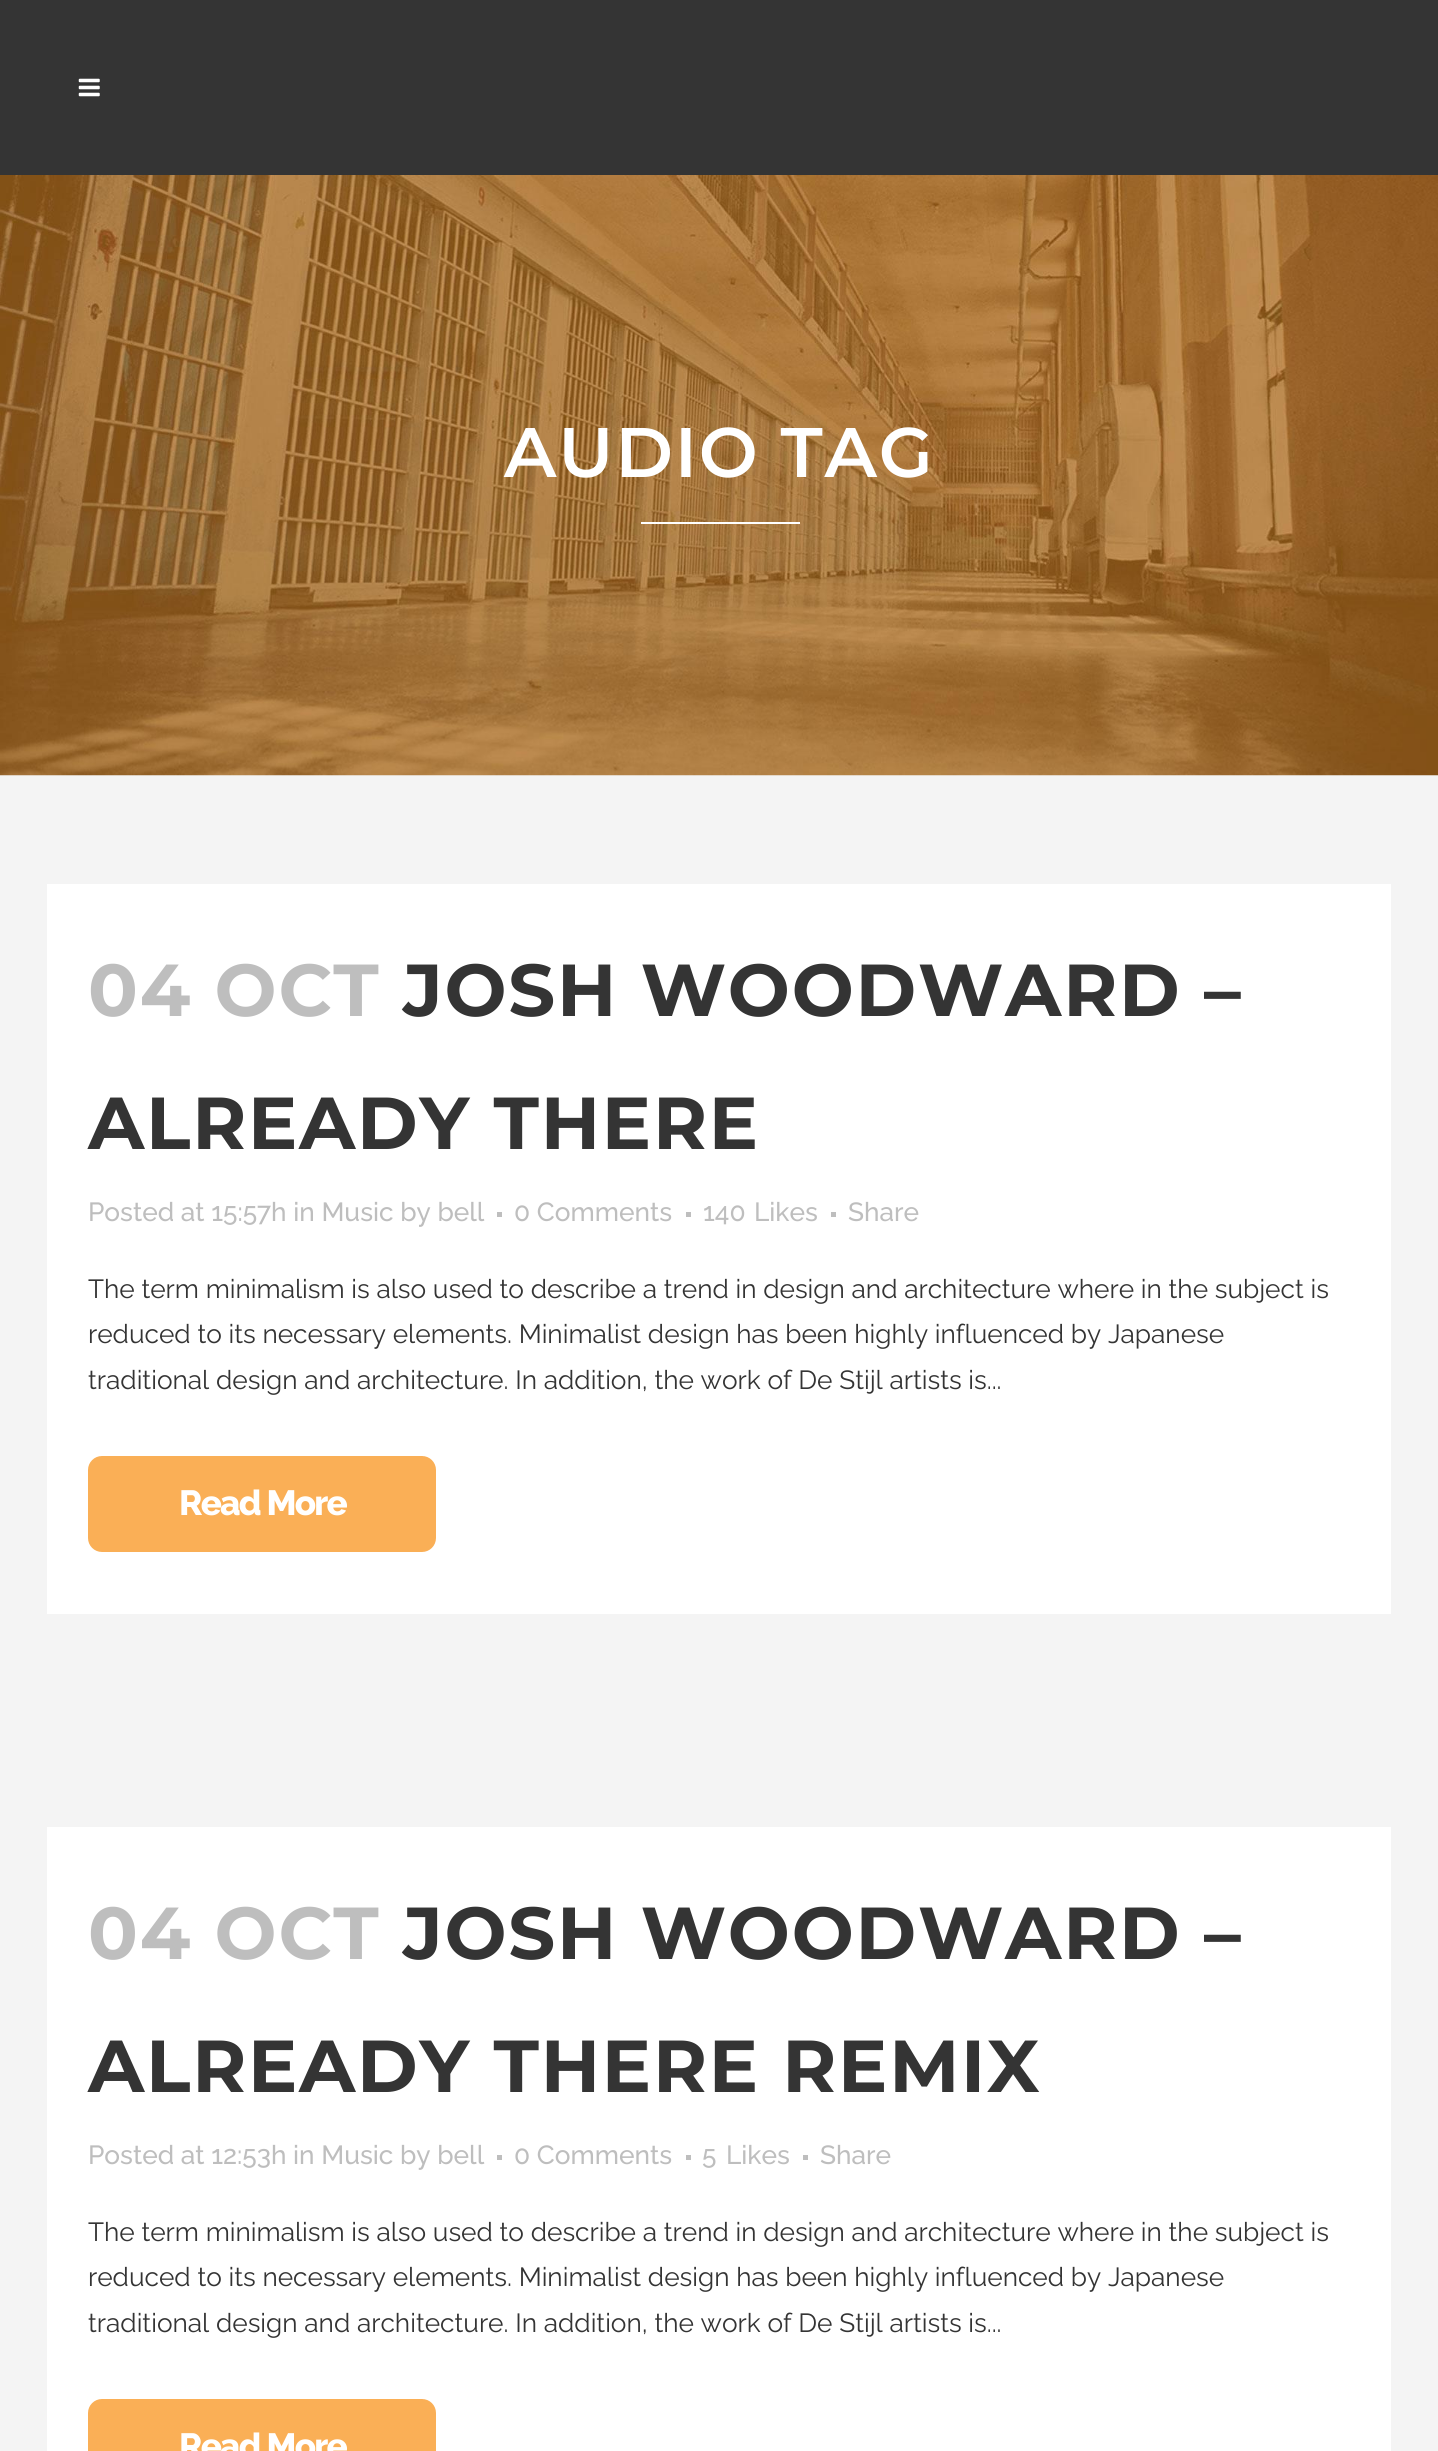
import math
import cairo

surface = cairo.ImageSurface(cairo.FORMAT_RGB24, 1438, 2451)
ctx = cairo.Context(surface)
options = cairo.FontOptions()
options.set_hint_metrics(cairo.HINT_METRICS_OFF)
options.set_hint_style(cairo.HINT_STYLE_NONE)
ctx.set_font_options(options)
ctx.set_miter_limit(4)


def set_color(code):
    ctx.set_source_rgb(*(v / 255 for v in bytes.fromhex(code[-6:])))


def draw_text(x, y, s, family, size, color, bold=False, italic=False):
    ctx.select_font_face(family, cairo.FONT_SLANT_ITALIC if italic else cairo.FONT_SLANT_NORMAL, cairo.FONT_WEIGHT_BOLD if bold else cairo.FONT_WEIGHT_NORMAL)
    ctx.set_font_size(size)
    set_color(color)
    ctx.move_to(x, y)
    ctx.show_text(s)


def draw_spaced(x, y, s, letter, word):
    ctx.move_to(x, y)
    for ch in s:
        ctx.show_text(ch)
        ctx.rel_move_to(letter + word * (ch == ' '), 0)


def fill_rect(x, y, w, h, color):
    set_color(color)
    ctx.rectangle(x, y, w, h)
    ctx.fill()


def rounded_rect(x, y, w, h, r):
    ctx.new_sub_path()
    for i, (u, v) in enumerate([(x + w - r, y + h - r), (x + r, y + h - r), (x + r, y + r), (x + w - r, y + r)]):
        ctx.arc(u, v, r, i * math.pi / 2, (i + 1) * math.pi / 2)
    ctx.close_path()


def draw_image(path, x, y, w, h):
    ctx.save()
    ctx.set_source_surface(cairo.ImageSurface.create_from_png(path), x, y)
    ctx.rectangle(x, y, w, h)
    ctx.fill()
    ctx.restore()


set_color("#f4f4f4")
ctx.paint()
fill_rect(0, 0, 1438, 175, "#343434")
draw_image("assets/img1.png", 78, 78, 22, 19)
draw_image("assets/img2.png", 0, 175, 1438, 601)
ctx.select_font_face("Montserrat SemiBold")
ctx.set_font_size(70)
set_color("#ffffff")
draw_spaced(504, 477, "AUDIO TAG", 1.75, 0)
fill_rect(641, 522, 159, 2, "#ffffff")
fill_rect(47, 884, 1344, 730, "#ffffff")
ctx.select_font_face("Montserrat", cairo.FONT_SLANT_NORMAL, cairo.FONT_WEIGHT_BOLD)
ctx.set_font_size(73.5)
set_color("#bebebe")
draw_spaced(88, 1016, "04 OCT", 1.75, 0)
set_color("#343434")
draw_spaced(403, 1016, "JOSH WOODWARD –", 1.75, 0)
draw_spaced(88, 1149, "ALREADY THERE", 1.75, 0)
draw_text(88, 1221, "Posted at 15:57h in Music by bell", "Raleway Medium", 26.25, "#bebebe")
fill_rect(497, 1212, 5, 5, "#bebebe")
draw_text(514, 1221, "0 Comments", "Raleway Medium", 26.25, "#bebebe")
fill_rect(686, 1212, 5, 5, "#bebebe")
draw_text(703, 1221, "140", "Raleway Medium", 26.25, "#bebebe")
draw_text(754, 1221, "Likes", "Raleway Medium", 26.25, "#bebebe")
fill_rect(831, 1212, 5, 5, "#bebebe")
draw_text(848, 1221, "Share", "Raleway Medium", 26.25, "#bebebe")
draw_text(88, 1298, "The term minimalism is also used to describe a trend in design and architecture where in the subject is", "Raleway", 26.25, "#343434")
draw_text(88, 1343, "reduced to its necessary elements. Minimalist design has been highly influenced by Japanese", "Raleway", 26.25, "#343434")
draw_text(88, 1389, "traditional design and architecture. In addition, the work of De Stijl artists is...", "Raleway", 26.25, "#343434")
set_color("#faaf56")
rounded_rect(88, 1456, 348, 96, 14)
ctx.fill()
ctx.select_font_face("Raleway ExtraBold")
ctx.set_font_size(35)
set_color("#ffffff")
draw_spaced(179, 1515, "Read More", -1.75, 0)
fill_rect(47, 1827, 1344, 624, "#ffffff")
ctx.select_font_face("Montserrat", cairo.FONT_SLANT_NORMAL, cairo.FONT_WEIGHT_BOLD)
ctx.set_font_size(73.5)
set_color("#bebebe")
draw_spaced(88, 1959, "04 OCT", 1.75, 0)
set_color("#343434")
draw_spaced(403, 1959, "JOSH WOODWARD –", 1.75, 0)
draw_spaced(88, 2092, "ALREADY THERE REMIX", 1.75, 0)
draw_text(88, 2164, "Posted at 12:53h in Music by bell", "Raleway Medium", 26.25, "#bebebe")
fill_rect(497, 2155, 5, 5, "#bebebe")
draw_text(514, 2164, "0 Comments", "Raleway Medium", 26.25, "#bebebe")
fill_rect(686, 2155, 5, 5, "#bebebe")
draw_text(702, 2164, "5", "Raleway Medium", 26.25, "#bebebe")
draw_text(726, 2164, "Likes", "Raleway Medium", 26.25, "#bebebe")
fill_rect(803, 2155, 5, 5, "#bebebe")
draw_text(820, 2164, "Share", "Raleway Medium", 26.25, "#bebebe")
draw_text(88, 2241, "The term minimalism is also used to describe a trend in design and architecture where in the subject is", "Raleway", 26.25, "#343434")
draw_text(88, 2286, "reduced to its necessary elements. Minimalist design has been highly influenced by Japanese", "Raleway", 26.25, "#343434")
draw_text(88, 2332, "traditional design and architecture. In addition, the work of De Stijl artists is...", "Raleway", 26.25, "#343434")
set_color("#faaf56")
rounded_rect(88, 2399, 348, 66, 14)
ctx.fill()
ctx.select_font_face("Raleway ExtraBold")
ctx.set_font_size(35)
set_color("#ffffff")
draw_spaced(179, 2458, "Read More", -1.75, 0)
surface.write_to_png("output.png")
